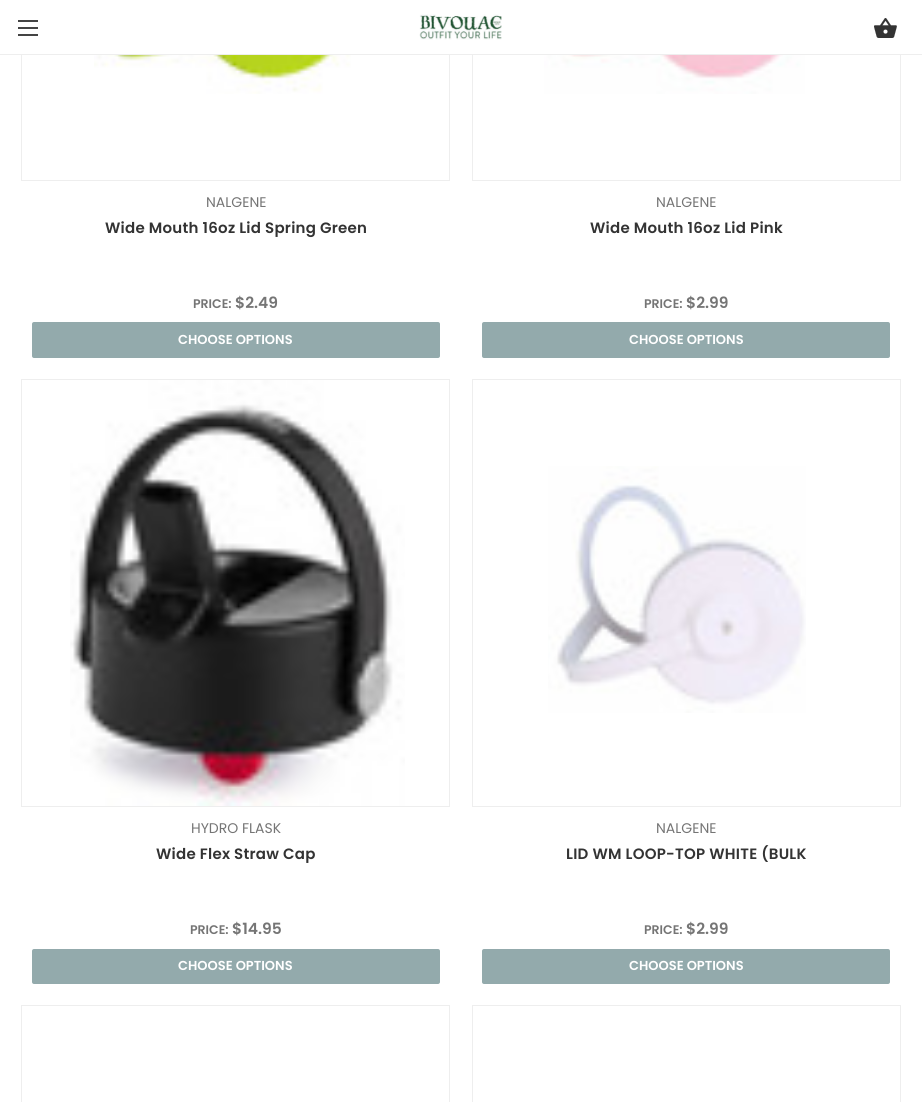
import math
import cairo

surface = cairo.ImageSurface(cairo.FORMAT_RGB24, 922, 1102)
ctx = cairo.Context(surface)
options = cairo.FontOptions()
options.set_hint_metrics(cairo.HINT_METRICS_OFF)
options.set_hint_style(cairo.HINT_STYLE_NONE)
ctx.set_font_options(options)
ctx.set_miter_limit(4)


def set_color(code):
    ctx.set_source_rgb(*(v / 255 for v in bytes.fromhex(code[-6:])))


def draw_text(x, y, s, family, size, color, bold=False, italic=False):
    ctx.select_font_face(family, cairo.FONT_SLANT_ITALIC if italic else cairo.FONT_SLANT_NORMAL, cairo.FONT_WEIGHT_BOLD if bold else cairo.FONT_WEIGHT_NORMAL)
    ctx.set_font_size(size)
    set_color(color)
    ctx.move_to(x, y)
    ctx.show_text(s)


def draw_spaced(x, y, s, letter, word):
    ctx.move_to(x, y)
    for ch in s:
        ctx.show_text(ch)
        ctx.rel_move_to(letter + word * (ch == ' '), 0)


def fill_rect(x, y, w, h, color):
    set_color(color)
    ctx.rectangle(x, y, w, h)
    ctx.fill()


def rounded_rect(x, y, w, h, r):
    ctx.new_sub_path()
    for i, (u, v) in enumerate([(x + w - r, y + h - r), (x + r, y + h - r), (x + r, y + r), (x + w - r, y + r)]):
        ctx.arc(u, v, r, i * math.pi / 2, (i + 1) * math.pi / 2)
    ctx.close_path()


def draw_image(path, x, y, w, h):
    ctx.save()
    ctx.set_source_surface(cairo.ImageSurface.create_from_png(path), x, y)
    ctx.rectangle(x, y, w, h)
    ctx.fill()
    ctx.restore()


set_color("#ffffff")
ctx.paint()
ctx.rectangle(21.5, -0.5, 428, 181)
set_color("#eeeeee")
ctx.set_line_width(1)
ctx.stroke()
ctx.rectangle(472.5, -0.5, 428, 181)
ctx.stroke()
fill_rect(21, 0, 880, 54, "#ffffff")
fill_rect(0, 54, 922, 1, "#eeeeee")
fill_rect(18, 27, 20, 2, "#444444")
fill_rect(18, 20, 20, 2, "#444444")
fill_rect(18, 34, 20, 2, "#444444")
draw_image("assets/img1.png", 419, 14, 83, 26)
draw_image("assets/img2.png", 874, 18, 23, 20)
draw_image("assets/img3.png", 94, 55, 284, 39)
draw_text(206, 207, "NALGENE", "Poppins", 14, "#757575")
ctx.select_font_face("Poppins SemiBold")
ctx.set_font_size(15)
set_color("#333333")
draw_spaced(105, 233, "Wide Mouth 16oz Lid Spring Green", 0.25, 0)
draw_text(193, 308, "PRICE:", "Poppins SemiBold", 12.5, "#757575")
draw_text(235, 308, "$2.49", "Poppins SemiBold", 15.5, "#757575")
set_color("#93aaac")
rounded_rect(32, 322, 408, 36, 2)
ctx.fill()
draw_text(178, 344, "CHOOSE OPTIONS", "Poppins SemiBold", 13, "#ffffff")
draw_image("assets/img4.png", 544, 55, 261, 39)
draw_text(656, 207, "NALGENE", "Poppins", 14, "#757575")
ctx.select_font_face("Poppins SemiBold")
ctx.set_font_size(15)
set_color("#333333")
draw_spaced(590, 233, "Wide Mouth 16oz Lid Pink", 0.25, 0)
draw_text(644, 308, "PRICE:", "Poppins SemiBold", 12.5, "#757575")
draw_text(686, 308, "$2.99", "Poppins SemiBold", 15.5, "#757575")
set_color("#93aaac")
rounded_rect(482, 322, 408, 36, 2)
ctx.fill()
draw_text(629, 344, "CHOOSE OPTIONS", "Poppins SemiBold", 13, "#ffffff")
ctx.rectangle(21.5, 379.5, 428, 427)
set_color("#eeeeee")
ctx.stroke()
draw_image("assets/img5.png", 70, 380, 335, 426)
draw_text(191, 833, "HYDRO FLASK", "Poppins", 14, "#757575")
ctx.select_font_face("Poppins SemiBold")
ctx.set_font_size(15)
set_color("#333333")
draw_spaced(156, 859, "Wide Flex Straw Cap", 0.25, 0)
draw_text(190, 934, "PRICE:", "Poppins SemiBold", 12.5, "#757575")
draw_text(232, 934, "$14.95", "Poppins SemiBold", 15.5, "#757575")
set_color("#93aaac")
rounded_rect(32, 949, 408, 35, 2)
ctx.fill()
draw_text(178, 970, "CHOOSE OPTIONS", "Poppins SemiBold", 13, "#ffffff")
ctx.rectangle(472.5, 379.5, 428, 427)
set_color("#eeeeee")
ctx.stroke()
draw_image("assets/img6.png", 548, 466, 258, 247)
draw_text(656, 833, "NALGENE", "Poppins", 14, "#757575")
ctx.select_font_face("Poppins SemiBold")
ctx.set_font_size(15)
set_color("#333333")
draw_spaced(566, 859, "LID WM LOOP-TOP WHITE (BULK", 0.25, 0)
draw_text(644, 934, "PRICE:", "Poppins SemiBold", 12.5, "#757575")
draw_text(686, 934, "$2.99", "Poppins SemiBold", 15.5, "#757575")
set_color("#93aaac")
rounded_rect(482, 949, 408, 35, 2)
ctx.fill()
draw_text(629, 970, "CHOOSE OPTIONS", "Poppins SemiBold", 13, "#ffffff")
ctx.rectangle(21.5, 1005.5, 428, 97)
set_color("#eeeeee")
ctx.stroke()
ctx.rectangle(472.5, 1005.5, 428, 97)
ctx.stroke()
surface.write_to_png("output.png")
